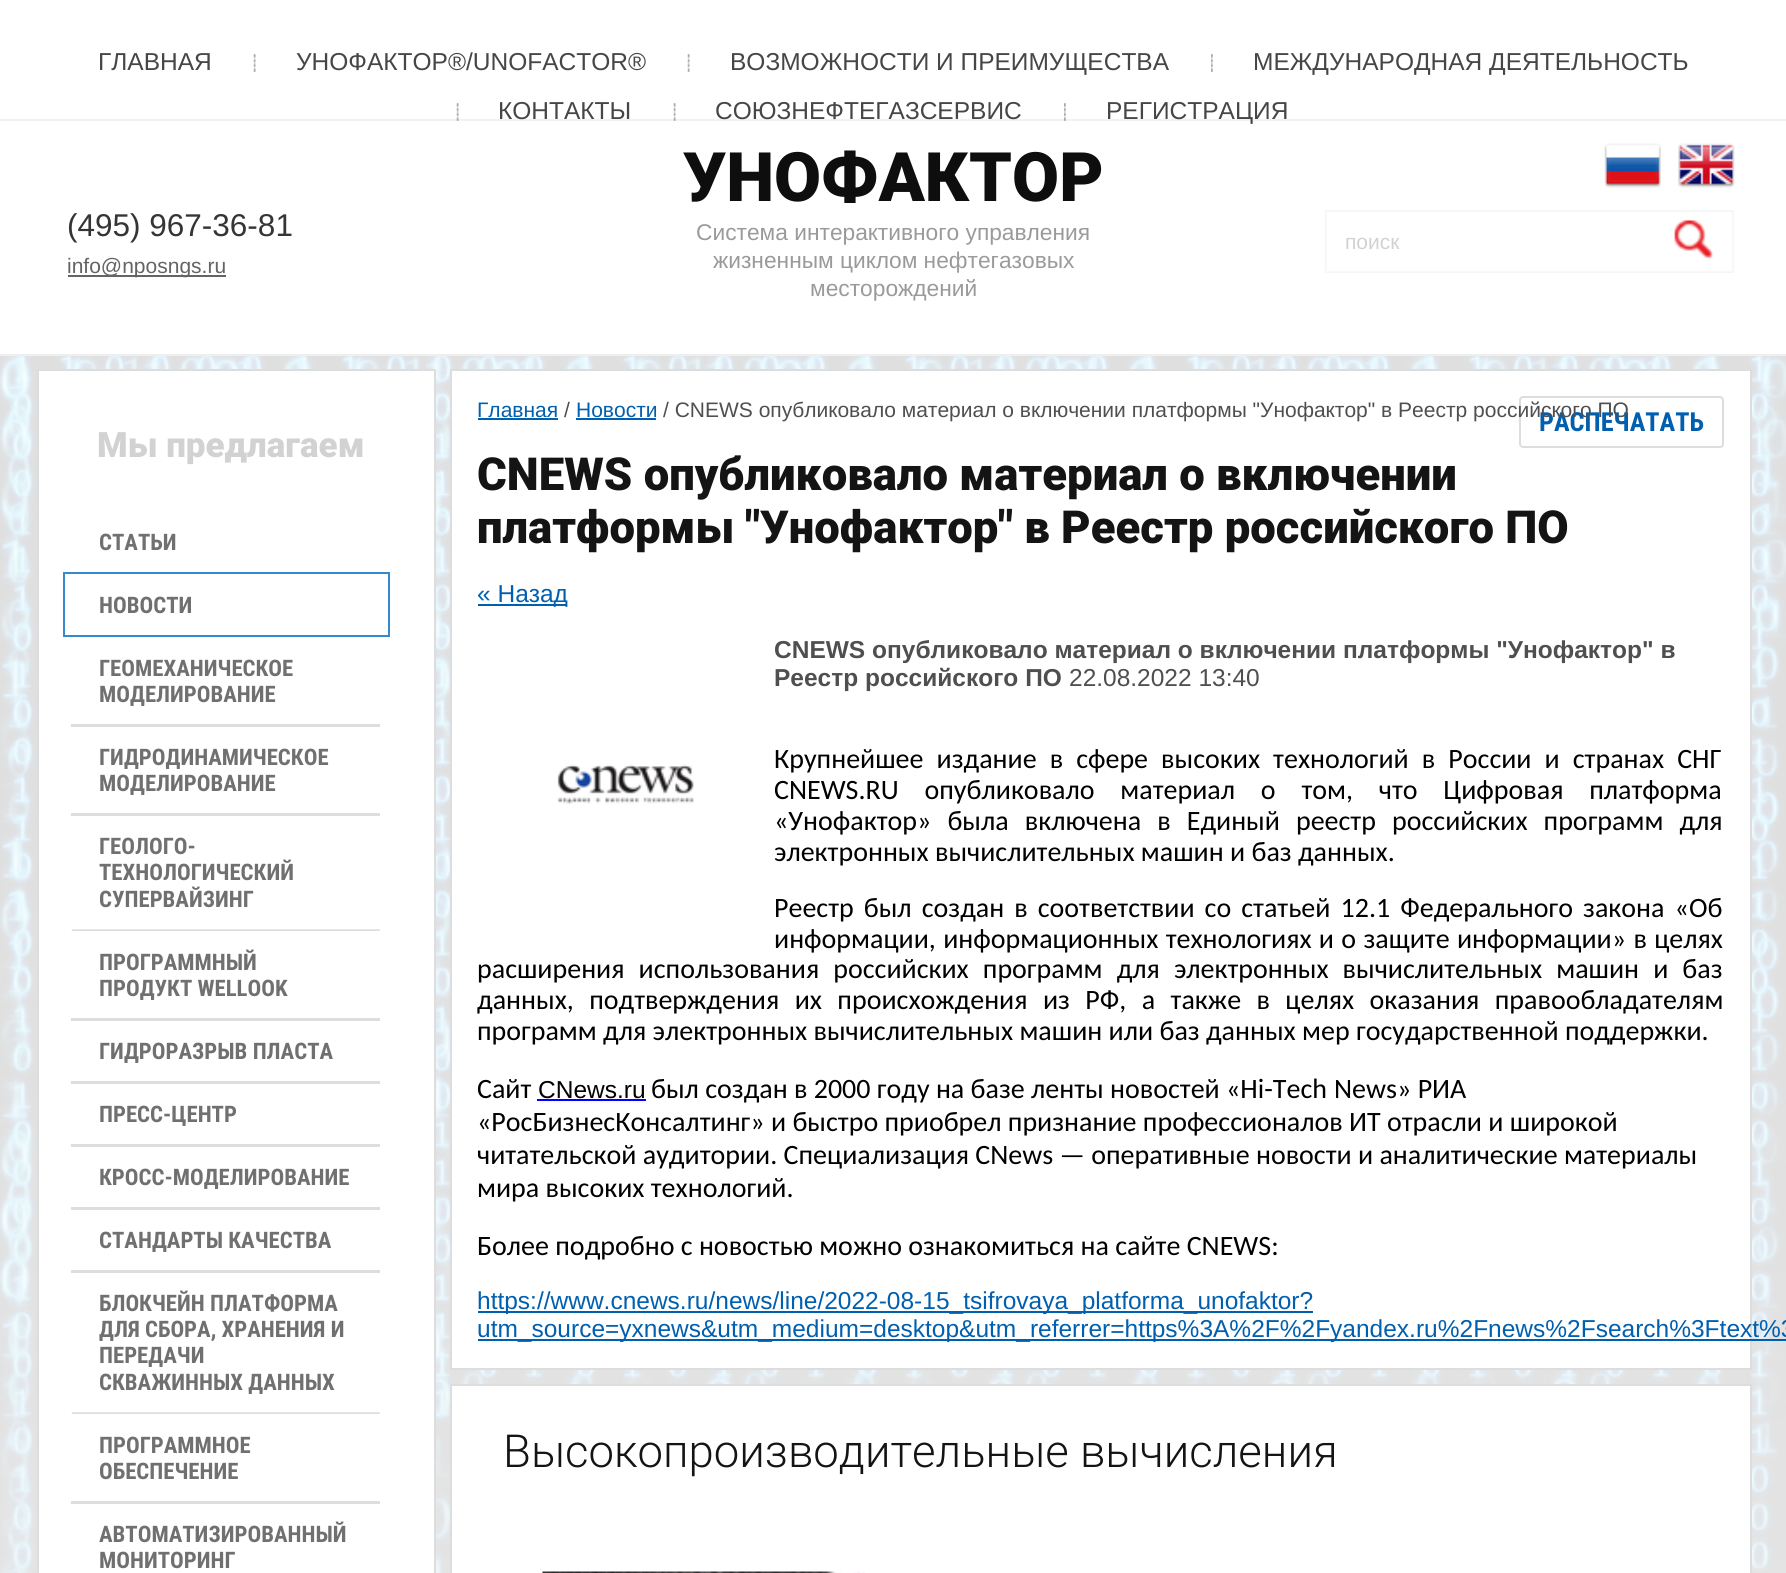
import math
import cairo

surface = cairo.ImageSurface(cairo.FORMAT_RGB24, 1786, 1573)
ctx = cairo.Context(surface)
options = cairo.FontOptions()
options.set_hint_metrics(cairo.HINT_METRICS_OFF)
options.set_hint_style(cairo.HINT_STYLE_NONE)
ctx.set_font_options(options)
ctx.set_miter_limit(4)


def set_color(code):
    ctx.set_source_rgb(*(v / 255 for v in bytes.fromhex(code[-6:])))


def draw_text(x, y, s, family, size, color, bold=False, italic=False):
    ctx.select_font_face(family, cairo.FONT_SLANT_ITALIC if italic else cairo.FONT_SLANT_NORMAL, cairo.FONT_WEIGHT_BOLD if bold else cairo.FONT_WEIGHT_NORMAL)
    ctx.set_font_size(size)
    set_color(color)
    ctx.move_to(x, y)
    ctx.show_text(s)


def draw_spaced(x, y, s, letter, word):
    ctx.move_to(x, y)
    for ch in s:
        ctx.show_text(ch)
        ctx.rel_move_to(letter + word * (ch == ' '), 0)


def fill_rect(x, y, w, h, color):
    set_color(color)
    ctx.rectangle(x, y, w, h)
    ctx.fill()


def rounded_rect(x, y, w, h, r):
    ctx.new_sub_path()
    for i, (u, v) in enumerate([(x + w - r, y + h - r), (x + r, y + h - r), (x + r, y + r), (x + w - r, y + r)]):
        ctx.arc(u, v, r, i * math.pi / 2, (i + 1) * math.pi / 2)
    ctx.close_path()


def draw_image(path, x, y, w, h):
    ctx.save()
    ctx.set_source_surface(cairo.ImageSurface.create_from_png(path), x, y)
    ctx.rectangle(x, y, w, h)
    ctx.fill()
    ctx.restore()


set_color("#ffffff")
ctx.paint()
draw_image("assets/img1.png", 0, 356, 1786, 1217)
fill_rect(0, 354, 1786, 2, "#efefef")
fill_rect(0, 119, 1786, 2, "#f2f2f2")
draw_text(98, 70, "ГЛАВНАЯ", "Liberation Sans", 24.5, "#464646")
draw_image("assets/img2.png", 253, 54, 3, 18)
draw_text(296, 70, "УНОФАКТОР®/UNOFACTOR®", "Liberation Sans", 24.5, "#464646")
draw_image("assets/img2.png", 687, 54, 3, 18)
draw_text(730, 70, "ВОЗМОЖНОСТИ И ПРЕИМУЩЕСТВА", "Liberation Sans", 24.5, "#464646")
draw_image("assets/img3.png", 1211, 54, 2, 18)
draw_text(1253, 70, "МЕЖДУНАРОДНАЯ ДЕЯТЕЛЬНОСТЬ", "Liberation Sans", 24.5, "#464646")
draw_image("assets/img4.png", 456, 103, 3, 18)
draw_text(498, 119, "КОНТАКТЫ", "Liberation Sans", 24.5, "#464646")
draw_image("assets/img4.png", 673, 103, 3, 18)
draw_text(715, 119, "СОЮЗНЕФТЕГАЗСЕРВИС", "Liberation Sans", 24.5, "#464646")
draw_image("assets/img5.png", 1064, 103, 2, 18)
draw_text(1106, 119, "РЕГИСТРАЦИЯ", "Liberation Sans", 24.5, "#464646")
draw_text(67, 236, "(495) 967-36-81", "Liberation Sans", 31.5, "#363535")
fill_rect(68, 275, 158, 2, "#646464")
draw_text(67, 273, "info@nposngs.ru", "Liberation Sans", 21, "#646464")
draw_text(683, 201, "УНОФАКТОР", "Roboto Black", 68.25, "#0e0e0e")
draw_text(696, 240, "Система интерактивного управления", "Liberation Sans", 22.75, "#9a9a9a")
draw_text(713, 268, "жизненным циклом нефтегазовых", "Liberation Sans", 22.75, "#9a9a9a")
draw_text(810, 296, "месторождений", "Liberation Sans", 22.75, "#9a9a9a")
draw_image("assets/img6.png", 1325, 210, 409, 63)
draw_text(1345, 249, "поиск", "Liberation Sans", 21, "#d2d2d2")
draw_image("assets/img7.png", 1604, 143, 57, 45)
draw_image("assets/img8.png", 1678, 143, 57, 45)
set_color("#ffffff")
ctx.rectangle(38, 370, 397, 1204)
ctx.fill_preserve()
set_color("#dddddd")
ctx.stroke()
draw_text(97, 457, "Мы предлагаем", "Roboto Black", 35, "#d2d2d2")
draw_text(99, 550, "СТАТЬИ", "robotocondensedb", 22.75, "#707070", bold=True)
ctx.rectangle(64, 573, 325, 63)
set_color("#358ace")
ctx.stroke()
draw_text(99, 613, "НОВОСТИ", "robotocondensedb", 22.75, "#707070", bold=True)
draw_text(99, 676, "ГЕОМЕХАНИЧЕСКОЕ", "robotocondensedb", 22.75, "#707070", bold=True)
draw_text(99, 702, "МОДЕЛИРОВАНИЕ", "robotocondensedb", 22.75, "#707070", bold=True)
fill_rect(71, 724, 309, 3, "#dddddd")
draw_text(99, 765, "ГИДРОДИНАМИЧЕСКОЕ", "robotocondensedb", 22.75, "#707070", bold=True)
draw_text(99, 791, "МОДЕЛИРОВАНИЕ", "robotocondensedb", 22.75, "#707070", bold=True)
fill_rect(71, 813, 309, 3, "#dddddd")
draw_text(99, 854, "ГЕОЛОГО-", "robotocondensedb", 22.75, "#707070", bold=True)
draw_text(99, 880, "ТЕХНОЛОГИЧЕСКИЙ", "robotocondensedb", 22.75, "#707070", bold=True)
draw_text(99, 907, "СУПЕРВАЙЗИНГ", "robotocondensedb", 22.75, "#707070", bold=True)
draw_image("assets/img9.png", 71, 929, 309, 2)
draw_text(99, 970, "ПРОГРАММНЫЙ", "robotocondensedb", 22.75, "#707070", bold=True)
draw_text(99, 996, "ПРОДУКТ WELLOOK", "robotocondensedb", 22.75, "#707070", bold=True)
fill_rect(71, 1018, 309, 3, "#dddddd")
draw_text(99, 1059, "ГИДРОРАЗРЫВ ПЛАСТА", "robotocondensedb", 22.75, "#707070", bold=True)
fill_rect(71, 1081, 309, 3, "#dddddd")
draw_text(99, 1122, "ПРЕСС-ЦЕНТР", "robotocondensedb", 22.75, "#707070", bold=True)
fill_rect(71, 1144, 309, 3, "#dddddd")
draw_text(99, 1185, "КРОСС-МОДЕЛИРОВАНИЕ", "robotocondensedb", 22.75, "#707070", bold=True)
fill_rect(71, 1207, 309, 3, "#dddddd")
draw_text(99, 1248, "CТАНДАРТЫ КАЧЕСТВА", "robotocondensedb", 22.75, "#707070", bold=True)
fill_rect(71, 1270, 309, 3, "#dddddd")
draw_text(99, 1311, "БЛОКЧЕЙН ПЛАТФОРМА", "robotocondensedb", 22.75, "#707070", bold=True)
draw_text(99, 1337, "ДЛЯ СБОРА, ХРАНЕНИЯ И", "robotocondensedb", 22.75, "#707070", bold=True)
draw_text(99, 1363, "ПЕРЕДАЧИ", "robotocondensedb", 22.75, "#707070", bold=True)
draw_text(99, 1390, "СКВАЖИННЫХ ДАННЫХ", "robotocondensedb", 22.75, "#707070", bold=True)
draw_image("assets/img9.png", 71, 1412, 309, 2)
draw_text(99, 1453, "ПРОГРАММНОЕ", "robotocondensedb", 22.75, "#707070", bold=True)
draw_text(99, 1479, "ОБЕСПЕЧЕНИЕ", "robotocondensedb", 22.75, "#707070", bold=True)
fill_rect(71, 1501, 309, 3, "#dddddd")
draw_text(99, 1542, "АВТОМАТИЗИРОВАННЫЙ", "robotocondensedb", 22.75, "#707070", bold=True)
draw_text(99, 1568, "МОНИТОРИНГ", "robotocondensedb", 22.75, "#707070", bold=True)
set_color("#ffffff")
ctx.rectangle(451, 370, 1300, 999)
ctx.fill_preserve()
set_color("#dddddd")
ctx.stroke()
draw_text(477, 417, "Главная", "Liberation Sans", 21, "#005faf")
fill_rect(478, 418, 80, 2, "#005faf")
draw_text(564, 417, "/", "Liberation Sans", 21, "#4f4f4f")
draw_text(576, 417, "Новости", "Liberation Sans", 21, "#005faf")
fill_rect(576, 418, 80, 2, "#005faf")
rounded_rect(1520, 397, 203, 50, 3)
set_color("#dddddd")
ctx.stroke()
draw_text(1539, 431, "РАСПЕЧАТАТЬ", "robotocondensedb", 26.25, "#005faf", bold=True)
draw_text(663, 417, "/ CNEWS опубликовало материал о включении платформы \"Унофактор\" в Реестр российского ПО", "Liberation Sans", 21, "#4f4f4f")
draw_text(477, 490, "CNEWS опубликовало материал о включении", "Roboto Black", 45.5, "#141414")
draw_text(477, 543, "платформы \"Унофактор\" в Реестр российского ПО", "Roboto Black", 45.5, "#141414")
fill_rect(478, 604, 89, 2, "#005faf")
draw_text(477, 602, "« Назад", "Liberation Sans", 24.5, "#005faf")
draw_text(774, 658, "CNEWS опубликовало материал о включении платформы \"Унофактор\" в", "Liberation Sans", 24.5, "#4f4f4f", bold=True)
draw_text(774, 686, "Реестр российского ПО", "Liberation Sans", 24.5, "#4f4f4f", bold=True)
draw_text(1069, 686, "22.08.2022 13:40", "Liberation Sans", 24.5, "#4f4f4f")
draw_image("assets/img10.png", 557, 764, 137, 40)
ctx.select_font_face("Carlito")
ctx.set_font_size(28)
set_color("#000000")
draw_spaced(774, 768, "Крупнейшее издание в сфере высоких технологий в России и странах СНГ", 0, 6.75)
draw_spaced(774, 799, "CNEWS.RU опубликовало материал о том, что Цифровая платформа", 0, 19.5)
draw_spaced(774, 830, "«Унофактор» была включена в Единый реестр российских программ для", 0, 9.75)
draw_text(774, 861, "электронных вычислительных машин и баз данных.", "Carlito", 28, "#000000")
draw_spaced(774, 917, "Реестр был создан в соответствии со статьей 12.1 Федерального закона «Об", 0, 3.75)
draw_spaced(774, 948, "информации, информационных технологиях и о защите информации» в целях", 0, 1)
draw_spaced(477, 978, "расширения использования российских программ для электронных вычислительных машин и баз", 0, 7.75)
draw_spaced(477, 1009, "данных, подтверждения их происхождения из РФ, а также в целях оказания правообладателям", 0, 9.1)
draw_text(477, 1040, "программ для электронных вычислительных машин или баз данных мер государственной поддержки.", "Carlito", 28, "#000000")
draw_text(477, 1098, "Сайт", "Carlito", 28, "#000000")
draw_text(538, 1098, "CNews.ru", "Liberation Sans", 24.5, "#000000")
fill_rect(537, 1099, 109, 2, "#0000ff")
draw_text(651, 1098, "был создан в 2000 году на базе ленты новостей «Hi-Tech", "Carlito", 28, "#000000")
draw_text(1334, 1098, "News» РИА", "Carlito", 28, "#000000")
draw_text(477, 1131, "«РосБизнесКонсалтинг» и быстро приобрел признание профессионалов ИТ отрасли и широкой", "Carlito", 28, "#000000")
draw_text(477, 1164, "читательской аудитории. Специализация CNews — оперативные новости и аналитические материалы", "Carlito", 28, "#000000")
draw_text(477, 1197, "мира высоких технологий.", "Carlito", 28, "#000000")
draw_text(477, 1255, "Более подробно с новостью можно ознакомиться на сайте CNEWS:", "Carlito", 28, "#000000")
fill_rect(478, 1311, 835, 2, "#005faf")
draw_text(477, 1309, "https://www.cnews.ru/news/line/2022-08-15_tsifrovaya_platforma_unofaktor?", "Liberation Sans", 24.5, "#005faf")
fill_rect(478, 1339, 1308, 2, "#005faf")
draw_text(477, 1337, "utm_source=yxnews&utm_medium=desktop&utm_referrer=https%3A%2F%2Fyandex.ru%2Fnews%2Fsearch%3Ftext%3", "Liberation Sans", 24.5, "#005faf")
set_color("#ffffff")
ctx.rectangle(451, 1385, 1300, 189)
ctx.fill_preserve()
set_color("#dddddd")
ctx.stroke()
draw_text(503, 1467, "Высокопроизводительные вычисления", "Roboto Light", 45.5, "#141414")
draw_image("assets/img11.png", 542, 1571, 323, 2)
surface.write_to_png("output.png")
